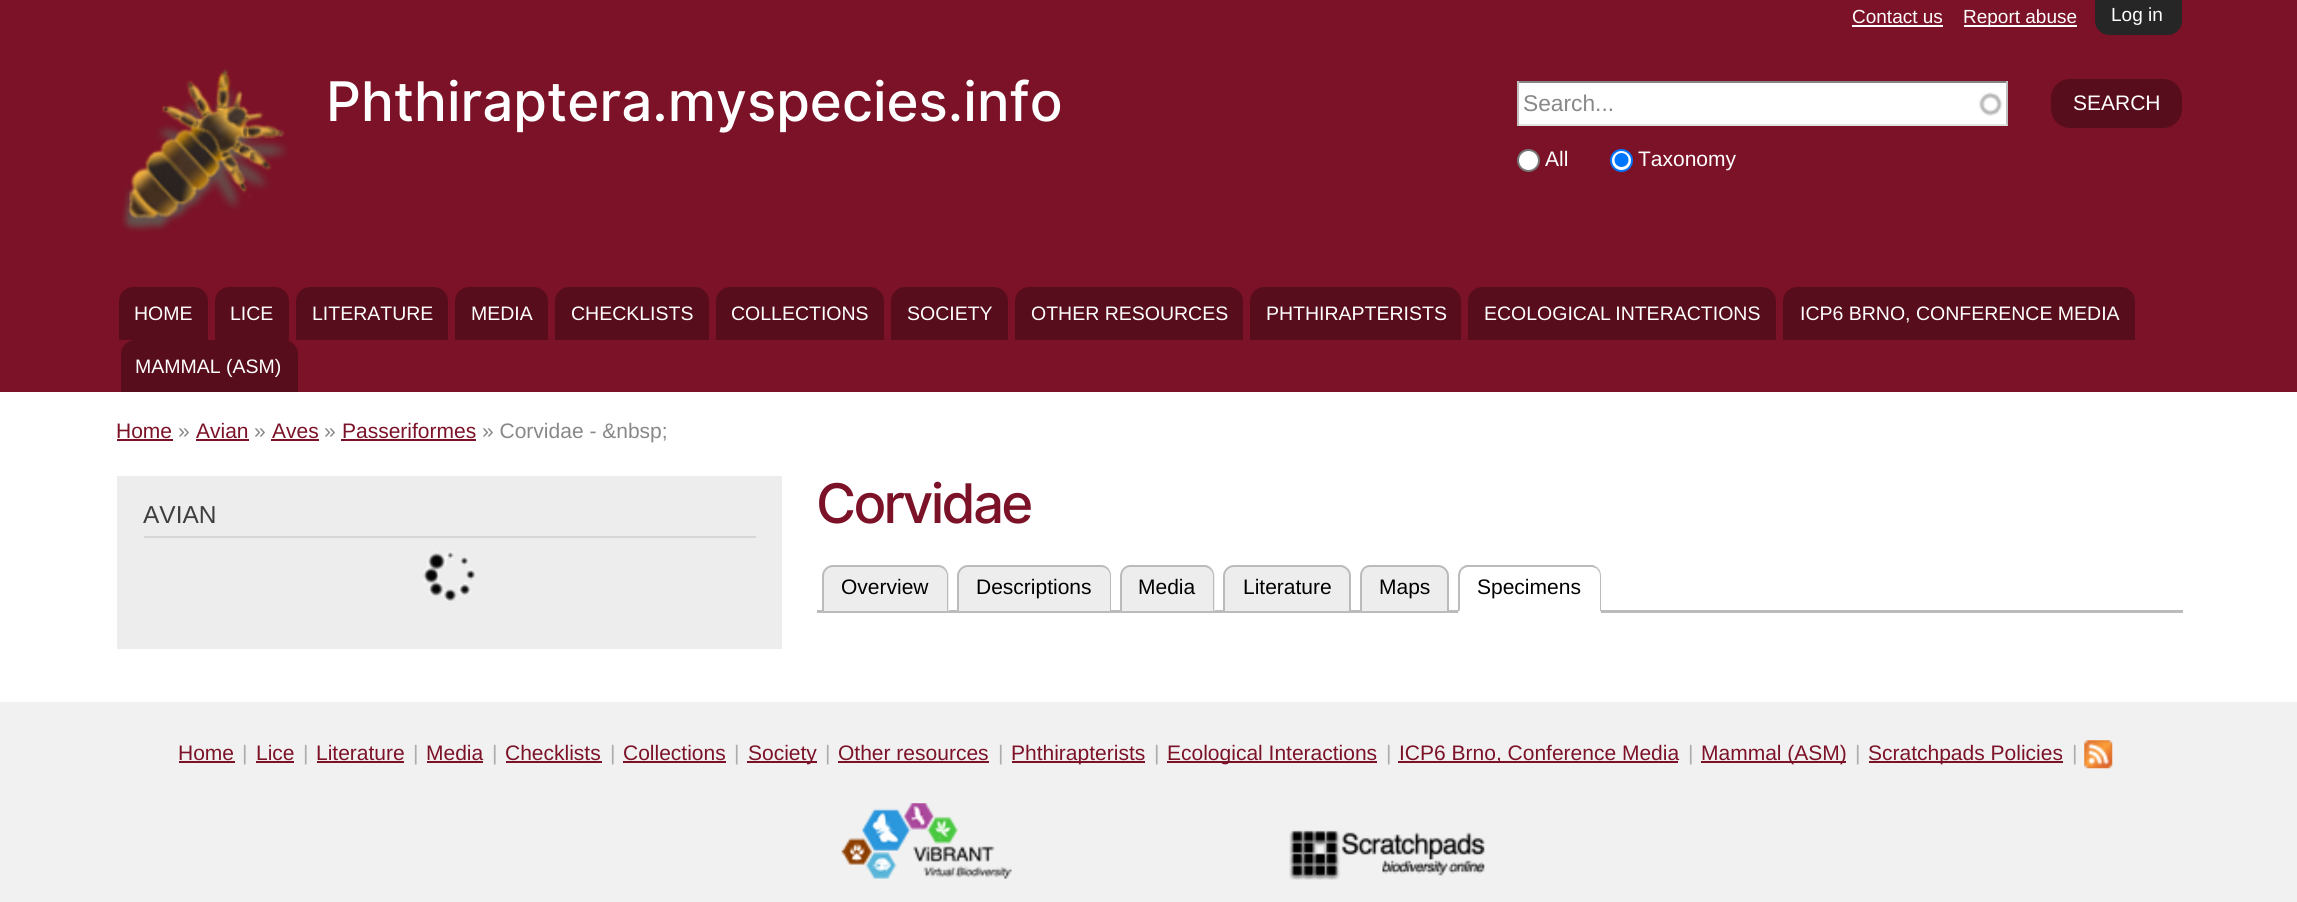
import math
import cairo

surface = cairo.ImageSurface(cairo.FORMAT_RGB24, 2297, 902)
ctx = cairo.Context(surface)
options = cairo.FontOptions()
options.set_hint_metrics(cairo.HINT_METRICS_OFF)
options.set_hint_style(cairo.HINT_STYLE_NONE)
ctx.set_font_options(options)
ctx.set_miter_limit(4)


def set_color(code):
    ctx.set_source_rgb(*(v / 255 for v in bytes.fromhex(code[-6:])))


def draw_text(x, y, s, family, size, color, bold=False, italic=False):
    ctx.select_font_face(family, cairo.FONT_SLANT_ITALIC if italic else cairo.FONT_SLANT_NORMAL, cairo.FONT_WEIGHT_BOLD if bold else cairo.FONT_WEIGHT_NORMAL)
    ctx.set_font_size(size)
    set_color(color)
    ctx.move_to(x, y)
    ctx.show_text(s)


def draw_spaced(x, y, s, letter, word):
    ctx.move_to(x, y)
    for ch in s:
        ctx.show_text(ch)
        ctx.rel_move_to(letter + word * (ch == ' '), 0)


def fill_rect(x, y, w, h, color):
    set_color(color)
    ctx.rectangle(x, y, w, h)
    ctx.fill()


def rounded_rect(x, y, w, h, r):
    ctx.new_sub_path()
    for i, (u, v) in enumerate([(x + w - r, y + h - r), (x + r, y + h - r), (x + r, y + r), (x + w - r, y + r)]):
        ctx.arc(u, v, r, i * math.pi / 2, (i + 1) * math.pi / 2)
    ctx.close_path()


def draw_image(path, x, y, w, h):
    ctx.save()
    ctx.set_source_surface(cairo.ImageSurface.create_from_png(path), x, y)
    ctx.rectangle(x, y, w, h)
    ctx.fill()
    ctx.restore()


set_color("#ffffff")
ctx.paint()
fill_rect(0, 0, 2297, 392, "#7c1227")
set_color("#262626")
ctx.new_path()
ctx.move_to(2095, 0)
ctx.line_to(2182, 0)
ctx.line_to(2182, 21)
ctx.curve_to(2182, 28.5, 2175.5, 35, 2168, 35)
ctx.line_to(2109, 35)
ctx.curve_to(2101.5, 35, 2095, 28.5, 2095, 21)
ctx.close_path()
ctx.fill()
draw_text(2111, 21, "Log in", "Liberation Sans", 19, "#ffffff")
draw_text(1852, 23, "Contact us", "Liberation Sans", 19, "#ffffff")
fill_rect(1852, 25, 91, 2, "#ffffff")
fill_rect(1964, 25, 113, 2, "#ffffff")
draw_text(1963, 23, "Report abuse", "Liberation Sans", 19, "#ffffff")
draw_image("assets/img1.png", 121, 69, 168, 163)
draw_text(326, 121, "Phthiraptera.myspecies.info", "Inter Medium", 54.6, "#ffffff")
fill_rect(1519, 83, 487, 41, "#ffffff")
draw_image("assets/img2.png", 1979, 92, 24, 24)
fill_rect(1517, 81, 490, 2, "#848484")
fill_rect(2006, 81, 2, 45, "#c1c1c1")
fill_rect(1517, 124, 490, 2, "#e1e1e1")
fill_rect(1517, 81, 2, 45, "#c1c1c1")
draw_text(1523, 111, "Search...", "Liberation Sans", 22.75, "#888888")
set_color("#570d1b")
rounded_rect(2051, 79, 131, 49, 19)
ctx.fill()
draw_text(2073, 110, "SEARCH", "Liberation Sans", 21, "#ffffff")
ctx.new_path()
ctx.arc(1528.5, 160.5, 10.5, 0, 2 * math.pi)
ctx.fill_preserve()
set_color("#767676")
ctx.stroke()
draw_text(1545, 166, "All", "Liberation Sans", 21, "#ffffff")
ctx.new_path()
ctx.arc(1621.5, 160.5, 10.5, 0, 2 * math.pi)
ctx.fill_preserve()
set_color("#0075ff")
ctx.stroke()
ctx.arc(1621.5, 160, 7, 0, 2 * math.pi)
ctx.fill()
draw_text(1638, 166, "Taxonomy", "Liberation Sans", 21, "#ffffff")
set_color("#570d1b")
ctx.new_path()
ctx.move_to(133, 287)
ctx.line_to(194, 287)
ctx.curve_to(201.5, 287, 208, 293.5, 208, 301)
ctx.line_to(208, 340)
ctx.line_to(119, 340)
ctx.line_to(119, 301)
ctx.curve_to(119, 293.5, 125.5, 287, 133, 287)
ctx.close_path()
ctx.fill()
draw_text(134, 320, "HOME", "Liberation Sans", 19.5, "#ffffff")
set_color("#570d1b")
ctx.new_path()
ctx.move_to(229, 287)
ctx.line_to(275, 287)
ctx.curve_to(282.5, 287, 289, 293.5, 289, 301)
ctx.line_to(289, 340)
ctx.line_to(215, 340)
ctx.line_to(215, 301)
ctx.curve_to(215, 293.5, 221.5, 287, 229, 287)
ctx.close_path()
ctx.fill()
draw_text(230, 320, "LICE", "Liberation Sans", 19.5, "#ffffff")
set_color("#570d1b")
ctx.new_path()
ctx.move_to(310, 287)
ctx.line_to(434, 287)
ctx.curve_to(441.5, 287, 448, 293.5, 448, 301)
ctx.line_to(448, 340)
ctx.line_to(296, 340)
ctx.line_to(296, 301)
ctx.curve_to(296, 293.5, 302.5, 287, 310, 287)
ctx.close_path()
ctx.fill()
draw_text(312, 320, "LITERATURE", "Liberation Sans", 19.5, "#ffffff")
set_color("#570d1b")
ctx.new_path()
ctx.move_to(469, 287)
ctx.line_to(534, 287)
ctx.curve_to(541.5, 287, 548, 293.5, 548, 301)
ctx.line_to(548, 340)
ctx.line_to(455, 340)
ctx.line_to(455, 301)
ctx.curve_to(455, 293.5, 461.5, 287, 469, 287)
ctx.close_path()
ctx.fill()
draw_text(471, 320, "MEDIA", "Liberation Sans", 19.5, "#ffffff")
set_color("#570d1b")
ctx.new_path()
ctx.move_to(569, 287)
ctx.line_to(695, 287)
ctx.curve_to(702.5, 287, 709, 293.5, 709, 301)
ctx.line_to(709, 340)
ctx.line_to(555, 340)
ctx.line_to(555, 301)
ctx.curve_to(555, 293.5, 561.5, 287, 569, 287)
ctx.close_path()
ctx.fill()
draw_text(571, 320, "CHECKLISTS", "Liberation Sans", 19.5, "#ffffff")
set_color("#570d1b")
ctx.new_path()
ctx.move_to(730, 287)
ctx.line_to(870, 287)
ctx.curve_to(877.5, 287, 884, 293.5, 884, 301)
ctx.line_to(884, 340)
ctx.line_to(716, 340)
ctx.line_to(716, 301)
ctx.curve_to(716, 293.5, 722.5, 287, 730, 287)
ctx.close_path()
ctx.fill()
draw_text(731, 320, "COLLECTIONS", "Liberation Sans", 19.5, "#ffffff")
set_color("#570d1b")
ctx.new_path()
ctx.move_to(905, 287)
ctx.line_to(994, 287)
ctx.curve_to(1001.5, 287, 1008, 293.5, 1008, 301)
ctx.line_to(1008, 340)
ctx.line_to(891, 340)
ctx.line_to(891, 301)
ctx.curve_to(891, 293.5, 897.5, 287, 905, 287)
ctx.close_path()
ctx.fill()
draw_text(907, 320, "SOCIETY", "Liberation Sans", 19.5, "#ffffff")
set_color("#570d1b")
ctx.new_path()
ctx.move_to(1029, 287)
ctx.line_to(1229, 287)
ctx.curve_to(1236.5, 287, 1243, 293.5, 1243, 301)
ctx.line_to(1243, 340)
ctx.line_to(1015, 340)
ctx.line_to(1015, 301)
ctx.curve_to(1015, 293.5, 1021.5, 287, 1029, 287)
ctx.close_path()
ctx.fill()
draw_text(1031, 320, "OTHER RESOURCES", "Liberation Sans", 19.5, "#ffffff")
set_color("#570d1b")
ctx.new_path()
ctx.move_to(1264, 287)
ctx.line_to(1447, 287)
ctx.curve_to(1454.5, 287, 1461, 293.5, 1461, 301)
ctx.line_to(1461, 340)
ctx.line_to(1250, 340)
ctx.line_to(1250, 301)
ctx.curve_to(1250, 293.5, 1256.5, 287, 1264, 287)
ctx.close_path()
ctx.fill()
draw_text(1266, 320, "PHTHIRAPTERISTS", "Liberation Sans", 19.5, "#ffffff")
set_color("#570d1b")
ctx.new_path()
ctx.move_to(1482, 287)
ctx.line_to(1762, 287)
ctx.curve_to(1769.5, 287, 1776, 293.5, 1776, 301)
ctx.line_to(1776, 340)
ctx.line_to(1468, 340)
ctx.line_to(1468, 301)
ctx.curve_to(1468, 293.5, 1474.5, 287, 1482, 287)
ctx.close_path()
ctx.fill()
set_color("#ffffff")
draw_spaced(1484, 320, "ECOLOGICAL INTERACTIONS", 0, -1)
set_color("#570d1b")
ctx.new_path()
ctx.move_to(1797, 287)
ctx.line_to(2121, 287)
ctx.curve_to(2128.5, 287, 2135, 293.5, 2135, 301)
ctx.line_to(2135, 340)
ctx.line_to(1783, 340)
ctx.line_to(1783, 301)
ctx.curve_to(1783, 293.5, 1789.5, 287, 1797, 287)
ctx.close_path()
ctx.fill()
draw_text(1800, 320, "ICP6 BRNO, CONFERENCE MEDIA", "Liberation Sans", 19.5, "#ffffff")
set_color("#570d1b")
ctx.new_path()
ctx.move_to(135, 340)
ctx.line_to(284, 340)
ctx.curve_to(291.5, 340, 298, 346.5, 298, 354)
ctx.line_to(298, 392)
ctx.line_to(121, 392)
ctx.line_to(121, 354)
ctx.curve_to(121, 346.5, 127.5, 340, 135, 340)
ctx.close_path()
ctx.fill()
draw_text(135, 373, "MAMMAL (ASM)", "Liberation Sans", 19.5, "#ffffff")
draw_text(116, 438, "Home", "Liberation Sans", 21, "#7c1227")
fill_rect(117, 439, 56, 2, "#7c1227")
draw_text(178, 438, "»", "Liberation Sans", 21, "#888888")
draw_text(196, 438, "Avian", "Liberation Sans", 21, "#7c1227")
fill_rect(196, 439, 53, 2, "#7c1227")
draw_text(254, 438, "»", "Liberation Sans", 21, "#888888")
draw_text(272, 438, "Aves", "Liberation Sans", 21, "#7c1227")
fill_rect(271, 439, 48, 2, "#7c1227")
draw_text(324, 438, "»", "Liberation Sans", 21, "#888888")
draw_text(342, 438, "Passeriformes", "Liberation Sans", 21, "#7c1227")
fill_rect(341, 439, 135, 2, "#7c1227")
draw_text(482, 438, "» Corvidae - &nbsp;", "Liberation Sans", 21, "#888888")
fill_rect(117, 476, 665, 173, "#ededed")
fill_rect(144, 536, 612, 2, "#d6d6d6")
draw_text(143, 523, "AVIAN", "Liberation Sans", 24.5, "#3e3e3e")
draw_image("assets/img3.png", 423, 551, 52, 51)
ctx.select_font_face("Inter Medium")
ctx.set_font_size(54.6)
set_color("#7c1227")
draw_spaced(816, 523, "Corvidae", -2.75, 0)
fill_rect(817, 610, 1366, 3, "#bbbbbb")
set_color("#ededed")
ctx.new_path()
ctx.move_to(834, 565)
ctx.line_to(938, 565)
ctx.curve_to(944, 565, 949, 570, 949, 576)
ctx.line_to(949, 611)
ctx.line_to(823, 611)
ctx.line_to(823, 576)
ctx.curve_to(823, 570, 828, 565, 834, 565)
ctx.close_path()
ctx.fill()
set_color("#bbbbbb")
ctx.set_fill_rule(cairo.FILL_RULE_EVEN_ODD)
ctx.new_path()
ctx.move_to(833, 565)
ctx.line_to(938, 565)
ctx.curve_to(944, 565, 948, 570, 948, 576)
ctx.line_to(948, 611)
ctx.line_to(822, 611)
ctx.line_to(822, 576)
ctx.curve_to(822, 570, 827, 565, 833, 565)
ctx.close_path()
ctx.move_to(833, 567)
ctx.line_to(938, 567)
ctx.curve_to(943, 567, 947, 571, 947, 576)
ctx.line_to(947, 611)
ctx.line_to(824, 611)
ctx.line_to(824, 576)
ctx.curve_to(824, 571, 828, 567, 833, 567)
ctx.close_path()
ctx.fill()
draw_text(841, 594, "Overview", "Liberation Sans", 21, "#000000")
set_color("#ededed")
ctx.new_path()
ctx.move_to(968, 565)
ctx.line_to(1100, 565)
ctx.curve_to(1106, 565, 1111, 570, 1111, 576)
ctx.line_to(1111, 611)
ctx.line_to(957, 611)
ctx.line_to(957, 576)
ctx.curve_to(957, 570, 962, 565, 968, 565)
ctx.close_path()
ctx.fill()
set_color("#bbbbbb")
ctx.new_path()
ctx.move_to(968, 565)
ctx.line_to(1101, 565)
ctx.curve_to(1107, 565, 1111, 570, 1111, 576)
ctx.line_to(1111, 611)
ctx.line_to(957, 611)
ctx.line_to(957, 576)
ctx.curve_to(957, 570, 962, 565, 968, 565)
ctx.close_path()
ctx.move_to(968, 567)
ctx.line_to(1101, 567)
ctx.curve_to(1106, 567, 1110, 571, 1110, 576)
ctx.line_to(1110, 611)
ctx.line_to(959, 611)
ctx.line_to(959, 576)
ctx.curve_to(959, 571, 963, 567, 968, 567)
ctx.close_path()
ctx.fill()
draw_text(976, 594, "Descriptions", "Liberation Sans", 21, "#000000")
set_color("#ededed")
ctx.new_path()
ctx.move_to(1131, 565)
ctx.line_to(1204, 565)
ctx.curve_to(1210, 565, 1215, 570, 1215, 576)
ctx.line_to(1215, 611)
ctx.line_to(1120, 611)
ctx.line_to(1120, 576)
ctx.curve_to(1120, 570, 1125, 565, 1131, 565)
ctx.close_path()
ctx.fill()
set_color("#bbbbbb")
ctx.new_path()
ctx.move_to(1130, 565)
ctx.line_to(1204, 565)
ctx.curve_to(1210, 565, 1214, 570, 1214, 576)
ctx.line_to(1214, 611)
ctx.line_to(1120, 611)
ctx.line_to(1120, 576)
ctx.curve_to(1120, 570, 1125, 565, 1130, 565)
ctx.close_path()
ctx.move_to(1130, 567)
ctx.line_to(1204, 567)
ctx.curve_to(1209, 567, 1213, 571, 1213, 576)
ctx.line_to(1213, 611)
ctx.line_to(1122, 611)
ctx.line_to(1122, 576)
ctx.curve_to(1122, 571, 1126, 567, 1130, 567)
ctx.close_path()
ctx.fill()
draw_text(1138, 594, "Media", "Liberation Sans", 21, "#000000")
set_color("#ededed")
ctx.new_path()
ctx.move_to(1234, 565)
ctx.line_to(1340, 565)
ctx.curve_to(1346, 565, 1351, 570, 1351, 576)
ctx.line_to(1351, 611)
ctx.line_to(1223, 611)
ctx.line_to(1223, 576)
ctx.curve_to(1223, 570, 1228, 565, 1234, 565)
ctx.close_path()
ctx.fill()
set_color("#bbbbbb")
ctx.new_path()
ctx.move_to(1234, 565)
ctx.line_to(1340, 565)
ctx.curve_to(1346, 565, 1351, 570, 1351, 576)
ctx.line_to(1351, 611)
ctx.line_to(1223, 611)
ctx.line_to(1223, 576)
ctx.curve_to(1223, 570, 1228, 565, 1234, 565)
ctx.close_path()
ctx.move_to(1234, 567)
ctx.line_to(1340, 567)
ctx.curve_to(1345, 567, 1349, 571, 1349, 576)
ctx.line_to(1349, 611)
ctx.line_to(1225, 611)
ctx.line_to(1225, 576)
ctx.curve_to(1225, 571, 1229, 567, 1234, 567)
ctx.close_path()
ctx.fill()
draw_text(1243, 594, "Literature", "Liberation Sans", 21, "#000000")
set_color("#ededed")
ctx.new_path()
ctx.move_to(1371, 565)
ctx.line_to(1438, 565)
ctx.curve_to(1444, 565, 1449, 570, 1449, 576)
ctx.line_to(1449, 611)
ctx.line_to(1360, 611)
ctx.line_to(1360, 576)
ctx.curve_to(1360, 570, 1365, 565, 1371, 565)
ctx.close_path()
ctx.fill()
set_color("#bbbbbb")
ctx.new_path()
ctx.move_to(1370, 565)
ctx.line_to(1438, 565)
ctx.curve_to(1444, 565, 1449, 570, 1449, 576)
ctx.line_to(1449, 611)
ctx.line_to(1360, 611)
ctx.line_to(1360, 576)
ctx.curve_to(1360, 570, 1364, 565, 1370, 565)
ctx.close_path()
ctx.move_to(1370, 567)
ctx.line_to(1438, 567)
ctx.curve_to(1443, 567, 1447, 571, 1447, 576)
ctx.line_to(1447, 611)
ctx.line_to(1362, 611)
ctx.line_to(1362, 576)
ctx.curve_to(1362, 571, 1365, 567, 1370, 567)
ctx.close_path()
ctx.fill()
draw_text(1379, 594, "Maps", "Liberation Sans", 21, "#000000")
set_color("#ffffff")
ctx.new_path()
ctx.move_to(1469, 565)
ctx.line_to(1590, 565)
ctx.curve_to(1596, 565, 1601, 570, 1601, 576)
ctx.line_to(1601, 613)
ctx.line_to(1458, 613)
ctx.line_to(1458, 576)
ctx.curve_to(1458, 570, 1463, 565, 1469, 565)
ctx.close_path()
ctx.fill()
set_color("#bbbbbb")
ctx.set_fill_rule(cairo.FILL_RULE_WINDING)
ctx.new_path()
ctx.move_to(1468, 567)
ctx.curve_to(1466, 567, 1464, 568, 1462, 570)
ctx.line_to(1461, 568)
ctx.curve_to(1462, 567, 1464, 566, 1466, 565)
ctx.line_to(1593, 565)
ctx.curve_to(1595, 566, 1597, 567, 1598, 568)
ctx.line_to(1597, 569)
ctx.curve_to(1596, 568, 1593, 567, 1591, 567)
ctx.close_path()
ctx.fill()
ctx.new_path()
ctx.move_to(1598, 568)
ctx.curve_to(1600, 570, 1601, 573, 1601, 576)
ctx.line_to(1601, 612)
ctx.line_to(1600, 611)
ctx.line_to(1600, 576)
ctx.curve_to(1600, 573, 1599, 571, 1597, 569)
ctx.close_path()
ctx.fill()
set_color("#ffffff")
ctx.new_path()
ctx.move_to(1601, 612)
ctx.line_to(1458, 612)
ctx.line_to(1460, 610)
ctx.line_to(1460, 611)
ctx.line_to(1600, 611)
ctx.close_path()
ctx.fill()
set_color("#bbbbbb")
ctx.new_path()
ctx.move_to(1458, 612)
ctx.line_to(1458, 576)
ctx.curve_to(1458, 573, 1459, 570, 1461, 568)
ctx.line_to(1462, 570)
ctx.curve_to(1461, 571, 1460, 574, 1460, 576)
ctx.line_to(1460, 610)
ctx.close_path()
ctx.fill()
draw_text(1477, 594, "Specimens", "Liberation Sans", 21, "#000000")
fill_rect(0, 702, 2297, 200, "#f1f1f1")
draw_text(178, 760, "Home", "Liberation Sans", 21, "#7c1227")
fill_rect(179, 761, 56, 2, "#7c1227")
draw_text(242, 760, "|", "Liberation Sans", 21, "#acacac")
draw_text(256, 760, "Lice", "Liberation Sans", 21, "#7c1227")
fill_rect(256, 761, 38, 2, "#7c1227")
draw_text(303, 760, "|", "Liberation Sans", 21, "#acacac")
draw_text(316, 760, "Literature", "Liberation Sans", 21, "#7c1227")
fill_rect(317, 761, 87, 2, "#7c1227")
draw_text(413, 760, "|", "Liberation Sans", 21, "#acacac")
draw_text(426, 760, "Media", "Liberation Sans", 21, "#7c1227")
fill_rect(427, 761, 56, 2, "#7c1227")
draw_text(492, 760, "|", "Liberation Sans", 21, "#acacac")
draw_text(505, 760, "Checklists", "Liberation Sans", 21, "#7c1227")
fill_rect(506, 761, 96, 2, "#7c1227")
draw_text(610, 760, "|", "Liberation Sans", 21, "#acacac")
draw_text(623, 760, "Collections", "Liberation Sans", 21, "#7c1227")
fill_rect(623, 761, 103, 2, "#7c1227")
draw_text(734, 760, "|", "Liberation Sans", 21, "#acacac")
fill_rect(747, 761, 70, 2, "#7c1227")
draw_text(748, 760, "Society", "Liberation Sans", 21, "#7c1227")
draw_text(825, 760, "|", "Liberation Sans", 21, "#acacac")
draw_text(838, 760, "Other resources", "Liberation Sans", 21, "#7c1227")
fill_rect(838, 761, 151, 2, "#7c1227")
draw_text(998, 760, "|", "Liberation Sans", 21, "#acacac")
fill_rect(1012, 761, 133, 2, "#7c1227")
draw_text(1011, 760, "Phthirapterists", "Liberation Sans", 21, "#7c1227")
draw_text(1154, 760, "|", "Liberation Sans", 21, "#acacac")
fill_rect(1167, 761, 210, 2, "#7c1227")
draw_text(1167, 760, "Ecological Interactions", "Liberation Sans", 21, "#7c1227")
draw_text(1386, 760, "|", "Liberation Sans", 21, "#acacac")
fill_rect(1398, 761, 280, 2, "#7c1227")
draw_text(1399, 760, "ICP6 Brno, Conference Media", "Liberation Sans", 21, "#7c1227")
draw_text(1688, 760, "|", "Liberation Sans", 21, "#acacac")
fill_rect(1701, 761, 145, 2, "#7c1227")
draw_text(1701, 760, "Mammal (ASM)", "Liberation Sans", 21, "#7c1227")
draw_text(1855, 760, "|", "Liberation Sans", 21, "#acacac")
fill_rect(1869, 761, 194, 2, "#7c1227")
draw_text(1868, 760, "Scratchpads Policies", "Liberation Sans", 21, "#7c1227")
draw_text(2072, 760, "|", "Liberation Sans", 21, "#acacac")
draw_image("assets/img4.png", 2084, 740, 29, 29)
draw_image("assets/img5.png", 841, 803, 171, 76)
draw_image("assets/img6.png", 1289, 830, 196, 50)
surface.write_to_png("output.png")
